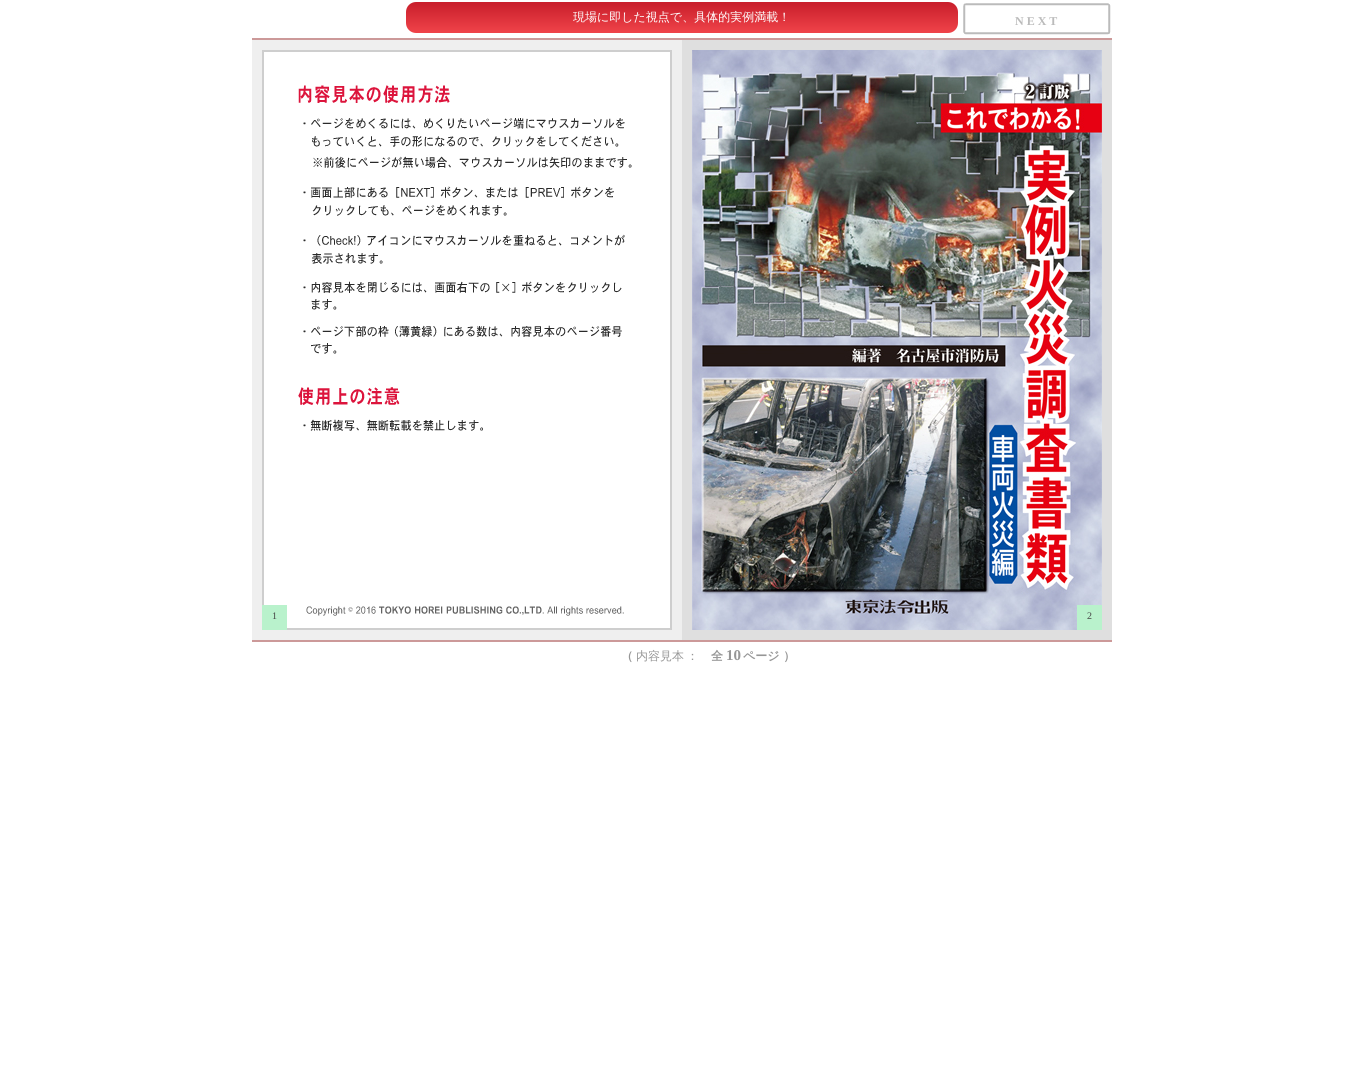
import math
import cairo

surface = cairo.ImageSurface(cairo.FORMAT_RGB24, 1363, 1065)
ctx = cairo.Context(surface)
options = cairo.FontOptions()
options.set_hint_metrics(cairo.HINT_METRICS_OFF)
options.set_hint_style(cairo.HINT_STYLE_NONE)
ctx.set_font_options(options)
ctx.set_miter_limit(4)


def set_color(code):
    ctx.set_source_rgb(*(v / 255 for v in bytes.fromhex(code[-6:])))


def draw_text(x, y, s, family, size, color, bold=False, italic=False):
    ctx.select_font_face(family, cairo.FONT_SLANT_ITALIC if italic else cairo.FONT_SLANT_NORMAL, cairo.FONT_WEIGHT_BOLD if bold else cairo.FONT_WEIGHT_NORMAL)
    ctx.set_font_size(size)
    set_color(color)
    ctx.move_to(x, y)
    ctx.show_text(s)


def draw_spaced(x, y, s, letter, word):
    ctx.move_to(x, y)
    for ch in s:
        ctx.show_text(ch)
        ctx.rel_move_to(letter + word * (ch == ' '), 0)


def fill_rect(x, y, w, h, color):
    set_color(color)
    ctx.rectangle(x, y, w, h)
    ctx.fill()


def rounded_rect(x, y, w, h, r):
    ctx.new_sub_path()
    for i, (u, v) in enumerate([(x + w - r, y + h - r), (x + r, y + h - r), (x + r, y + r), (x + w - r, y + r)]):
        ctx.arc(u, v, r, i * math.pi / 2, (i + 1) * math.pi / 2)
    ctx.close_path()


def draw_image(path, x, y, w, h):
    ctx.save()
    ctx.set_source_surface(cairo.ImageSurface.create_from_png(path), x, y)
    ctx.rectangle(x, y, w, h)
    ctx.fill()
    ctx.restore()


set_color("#ffffff")
ctx.paint()
gradient = cairo.LinearGradient(682, 2, 682, 33)
gradient.add_color_stop_rgba(0, 0.784, 0.118, 0.169, 1)
gradient.add_color_stop_rgba(1, 0.941, 0.263, 0.286, 1)
ctx.set_source(gradient)
rounded_rect(406, 2, 552, 31, 10)
ctx.fill()
draw_text(573, 21, "現場に即した視点で、具体的実例満載！", "WenQuanYi Zen Hei Medium", 12, "#ffffff")
fill_rect(252, 38, 860, 2, "#cc9999")
fill_rect(252, 640, 860, 2, "#cc9999")
draw_image("assets/img1.png", 963, 3, 148, 32)
draw_text(1015, 25, "N E X T", "Liberation Serif", 12, "#bbbbbb", bold=True)
fill_rect(252, 40, 430, 600, "#efefef")
draw_image("assets/img2.png", 262, 50, 410, 580)
fill_rect(262, 605, 25, 25, "#b9f2cc")
draw_text(272, 619, "1", "Liberation Serif", 10, "#444444")
fill_rect(682, 40, 430, 600, "#dfdfdf")
draw_image("assets/img3.png", 692, 50, 410, 580)
fill_rect(1077, 605, 25, 25, "#b9f2cc")
draw_text(1087, 619, "2", "Liberation Serif", 10, "#444444")
draw_text(621, 660, "（", "WenQuanYi Zen Hei", 12, "#969696", bold=True)
ctx.select_font_face("WenQuanYi Zen Hei Medium")
draw_spaced(636, 660, "内容見本 ：", 0, -1)
draw_text(711, 660, "全", "WenQuanYi Zen Hei", 12, "#969696", bold=True)
draw_text(726, 660, "10", "Liberation Serif", 15, "#969696", bold=True)
draw_text(743, 660, "ページ ）", "WenQuanYi Zen Hei", 12, "#969696", bold=True)
surface.write_to_png("output.png")
